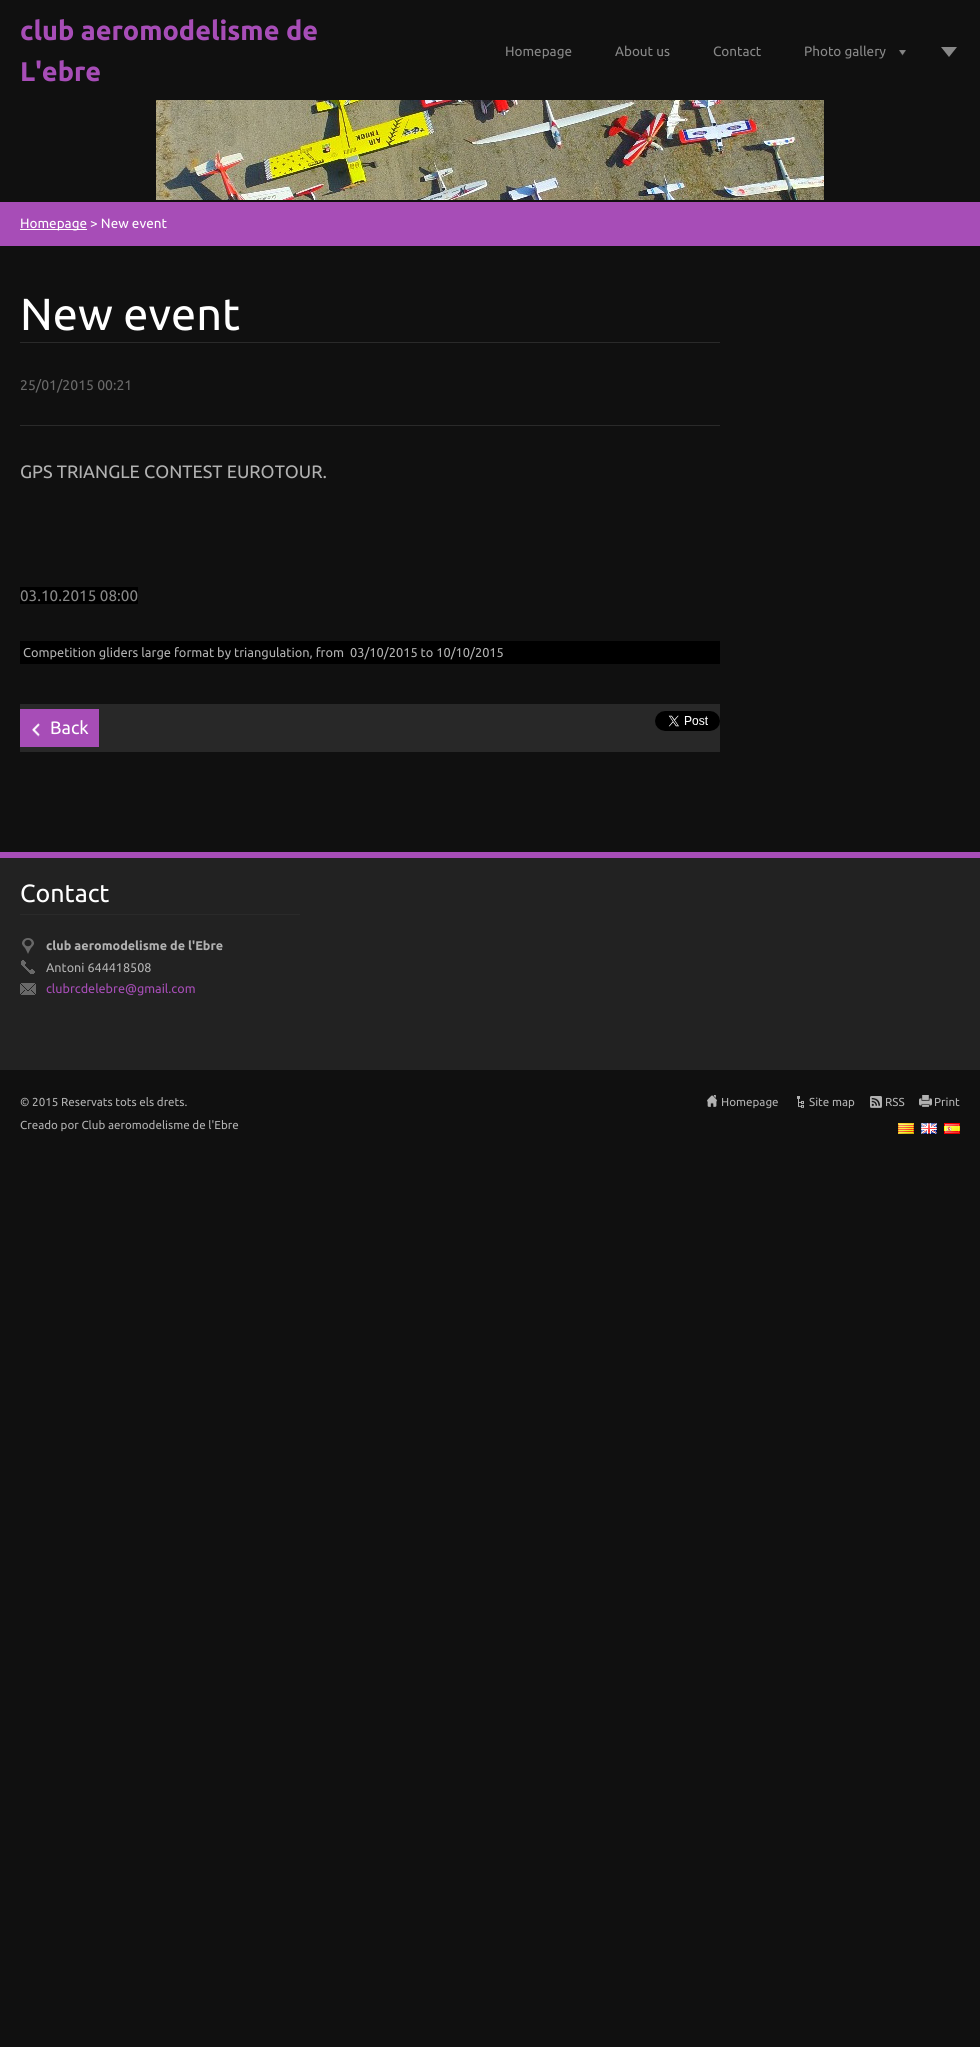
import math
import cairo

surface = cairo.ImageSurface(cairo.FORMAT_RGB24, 980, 2047)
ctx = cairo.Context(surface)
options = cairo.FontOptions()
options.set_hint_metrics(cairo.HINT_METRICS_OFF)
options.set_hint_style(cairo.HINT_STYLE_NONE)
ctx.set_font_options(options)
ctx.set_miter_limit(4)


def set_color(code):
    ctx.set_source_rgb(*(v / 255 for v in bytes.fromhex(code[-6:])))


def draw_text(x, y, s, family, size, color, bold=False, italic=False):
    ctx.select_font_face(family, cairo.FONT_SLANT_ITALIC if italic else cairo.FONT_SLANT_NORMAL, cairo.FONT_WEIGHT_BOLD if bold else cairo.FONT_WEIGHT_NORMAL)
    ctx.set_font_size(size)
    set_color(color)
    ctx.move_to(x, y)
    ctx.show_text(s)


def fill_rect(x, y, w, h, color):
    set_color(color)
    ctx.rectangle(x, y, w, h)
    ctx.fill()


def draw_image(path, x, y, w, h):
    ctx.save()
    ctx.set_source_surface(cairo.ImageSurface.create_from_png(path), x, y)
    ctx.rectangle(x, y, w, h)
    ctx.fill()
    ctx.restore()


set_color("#101010")
ctx.paint()
draw_text(20, 40, "club aeromodelisme de", "Ubuntu", 27, "#a74db7", bold=True)
draw_text(20, 81, "L'ebre", "Ubuntu", 27, "#a74db7", bold=True)
draw_text(505, 56, "Homepage", "Ubuntu", 13.5, "#888888")
draw_text(615, 56, "About us", "Ubuntu", 13.5, "#888888")
draw_text(713, 56, "Contact", "Ubuntu", 13.5, "#888888")
draw_image("assets/img1.png", 899, 50, 7, 6)
draw_text(804, 56, "Photo gallery", "Ubuntu", 13.5, "#888888")
ctx.new_path()
ctx.move_to(941, 47)
ctx.line_to(957, 47)
ctx.line_to(949, 57)
ctx.close_path()
ctx.fill()
draw_image("assets/img2.png", 156, 100, 668, 100)
fill_rect(0, 202, 980, 44, "#a74db7")
fill_rect(20, 229, 67, 1, "#ffffff")
draw_text(20, 228, "Homepage > New event", "Ubuntu", 13.5, "#ffffff")
fill_rect(20, 342, 700, 1, "#2a2a2a")
draw_text(20, 330, "New event", "Ubuntu", 45, "#ffffff")
draw_text(20, 390, "25/01/2015 00:21", "Ubuntu", 14, "#696969")
fill_rect(20, 425, 700, 1, "#2a2a2a")
draw_text(20, 478, "GPS TRIANGLE CONTEST EUROTOUR.", "Ubuntu", 18, "#b2b2b2")
fill_rect(20, 587, 118, 17, "#000000")
draw_text(20, 601, "03.10.2015 08:00", "Ubuntu", 15.25, "#888888")
fill_rect(20, 641, 700, 23, "#000000")
draw_text(23, 657, "Competition gliders large format by triangulation, from  03/10/2015 to 10/10/2015", "Ubuntu", 12.8, "#b2b2b2")
fill_rect(20, 704, 700, 48, "#282828")
fill_rect(20, 709, 79, 38, "#a74db7")
draw_image("assets/img3.png", 32, 723, 8, 14)
draw_text(50, 734, "Back", "Ubuntu", 18, "#ffffff")
draw_image("assets/img4.png", 655, 711, 65, 20)
fill_rect(0, 858, 980, 212, "#222222")
fill_rect(0, 852, 980, 6, "#a74db7")
fill_rect(20, 914, 280, 1, "#2a2a2a")
draw_text(20, 902, "Contact", "Ubuntu", 25, "#ffffff")
draw_image("assets/img5.png", 22, 938, 12, 16)
draw_text(46, 950, "club aeromodelisme de l'Ebre", "Ubuntu", 12.6, "#b2b2b2", bold=True)
draw_image("assets/img6.png", 21, 960, 14, 14)
draw_text(46, 972, "Antoni 644418508", "Ubuntu", 12.6, "#b2b2b2")
draw_image("assets/img7.png", 20, 983, 16, 12)
draw_text(46, 993, "clubrcdelebre@gmail.com", "Ubuntu", 12.6, "#a74db7")
draw_text(20, 1106, "© 2015 Reservats tots els drets.", "Ubuntu", 11.6, "#b2b2b2")
draw_text(20, 1129, "Creado por Club aeromodelisme de l'Ebre", "Ubuntu", 11.6, "#b2b2b2")
draw_image("assets/img8.png", 707, 1095, 10, 12)
draw_text(721, 1106, "Homepage", "Ubuntu", 11.6, "#b2b2b2")
draw_image("assets/img9.png", 797, 1096, 7, 12)
draw_text(809, 1106, "Site map", "Ubuntu", 11.6, "#b2b2b2")
draw_image("assets/img10.png", 870, 1096, 12, 12)
draw_text(885, 1106, "RSS", "Ubuntu", 11.6, "#b2b2b2")
draw_image("assets/img11.png", 919, 1095, 13, 12)
draw_text(934, 1106, "Print", "Ubuntu", 11.6, "#b2b2b2")
draw_image("assets/img12.png", 898, 1123, 16, 11)
draw_image("assets/img13.png", 921, 1123, 16, 11)
draw_image("assets/img14.png", 944, 1123, 16, 11)
surface.write_to_png("output.png")
